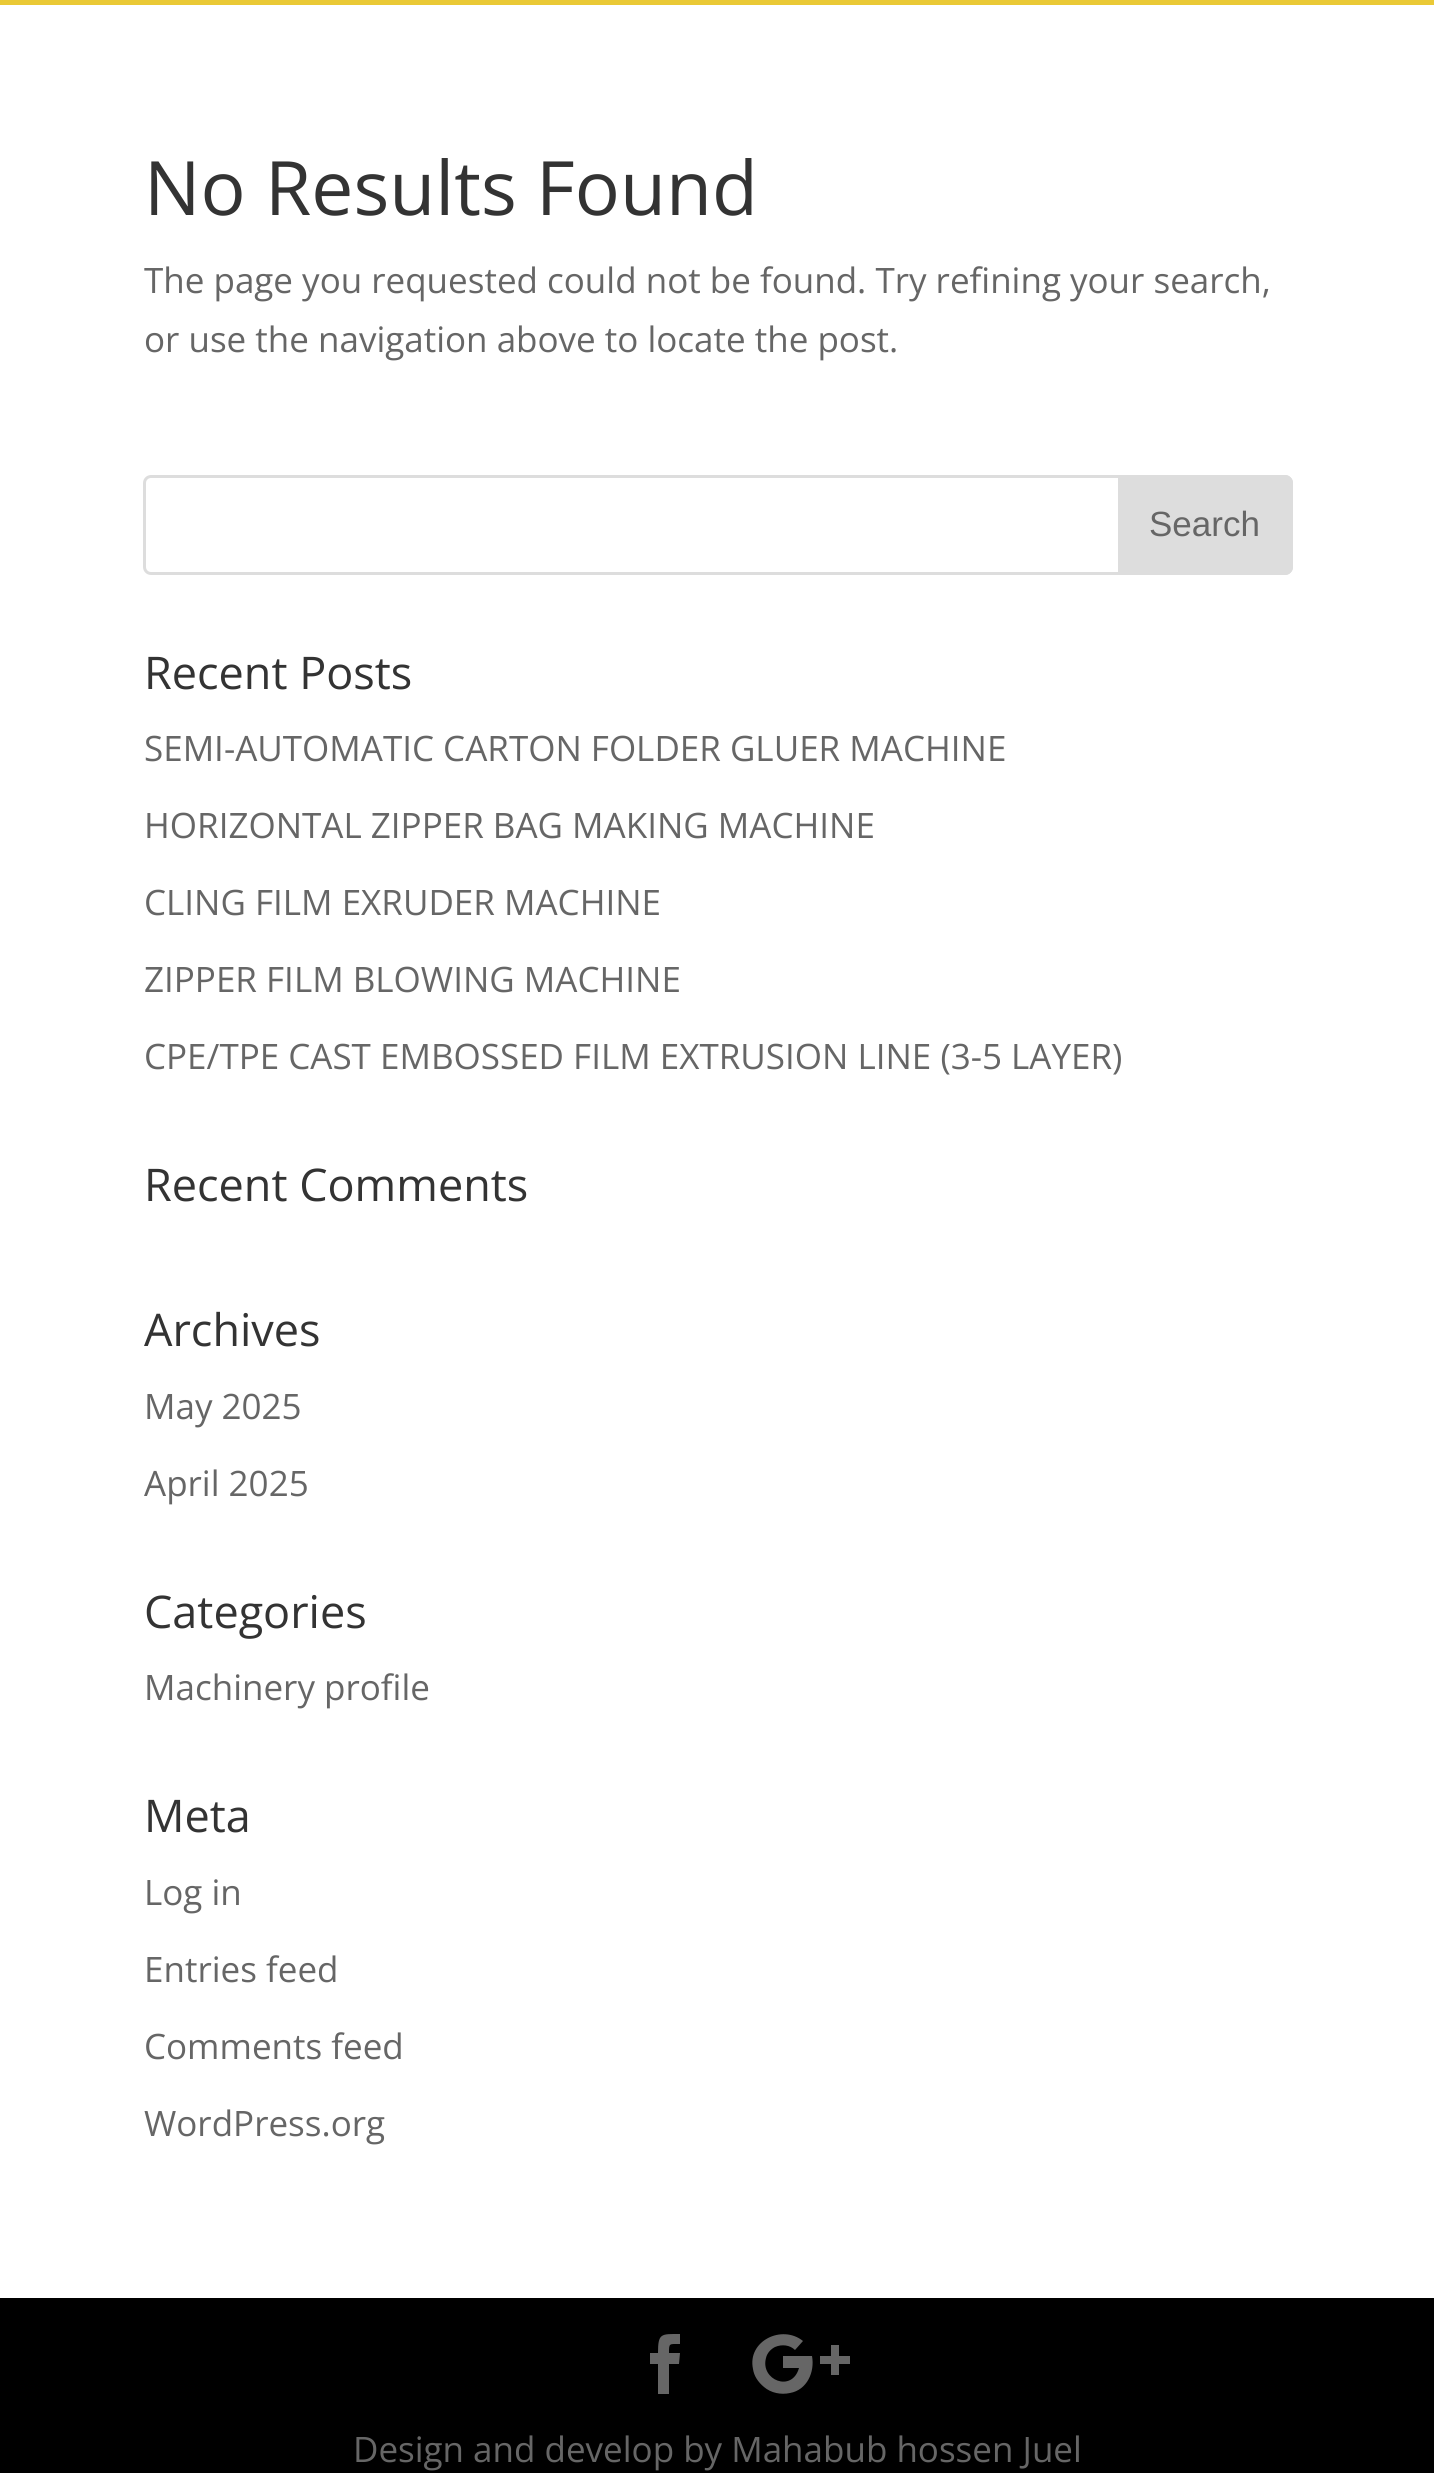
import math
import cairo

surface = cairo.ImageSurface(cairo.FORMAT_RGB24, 1434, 2473)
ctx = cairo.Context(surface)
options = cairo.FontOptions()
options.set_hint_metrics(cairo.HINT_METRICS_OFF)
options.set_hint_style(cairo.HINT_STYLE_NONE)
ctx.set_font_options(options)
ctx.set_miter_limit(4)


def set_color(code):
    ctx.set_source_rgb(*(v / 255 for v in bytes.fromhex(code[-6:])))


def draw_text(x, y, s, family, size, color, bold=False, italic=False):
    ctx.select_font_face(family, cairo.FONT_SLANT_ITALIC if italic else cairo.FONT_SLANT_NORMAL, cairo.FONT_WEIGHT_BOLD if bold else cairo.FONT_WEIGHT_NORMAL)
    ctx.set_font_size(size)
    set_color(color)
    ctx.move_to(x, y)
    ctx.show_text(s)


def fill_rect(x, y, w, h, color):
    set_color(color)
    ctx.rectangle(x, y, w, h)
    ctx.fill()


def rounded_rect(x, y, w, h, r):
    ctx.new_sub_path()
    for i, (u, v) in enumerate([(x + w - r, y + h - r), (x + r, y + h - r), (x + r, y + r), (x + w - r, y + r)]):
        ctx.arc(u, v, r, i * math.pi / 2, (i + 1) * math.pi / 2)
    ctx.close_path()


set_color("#ffffff")
ctx.paint()
fill_rect(0, 0, 1434, 5, "#eac936")
draw_text(144, 215, "No Results Found", "Open Sans", 75, "#333333")
draw_text(144, 293, "The page you requested could not be found. Try refining your search,", "Open Sans", 35, "#666666")
draw_text(144, 352, "or use the navigation above to locate the post.", "Open Sans", 35, "#666666")
rounded_rect(144.5, 476.5, 1147, 97, 6.5)
set_color("#dddddd")
ctx.set_line_width(3)
ctx.stroke()
ctx.new_path()
ctx.move_to(1119.5, 476.5)
ctx.line_to(1285, 476.5)
ctx.curve_to(1288.5, 476.5, 1291.5, 479.5, 1291.5, 483)
ctx.line_to(1291.5, 567)
ctx.curve_to(1291.5, 570.5, 1288.5, 573.5, 1285, 573.5)
ctx.line_to(1119.5, 573.5)
ctx.close_path()
ctx.fill_preserve()
ctx.stroke()
draw_text(1149, 536, "Search", "Liberation Sans", 35, "#666666")
draw_text(144, 689, "Recent Posts", "Open Sans", 45, "#333333")
draw_text(144, 761, "SEMI-AUTOMATIC CARTON FOLDER GLUER MACHINE", "Open Sans", 35, "#666666")
draw_text(144, 838, "HORIZONTAL ZIPPER BAG MAKING MACHINE", "Open Sans", 35, "#666666")
draw_text(144, 915, "CLING FILM EXRUDER MACHINE", "Open Sans", 35, "#666666")
draw_text(144, 992, "ZIPPER FILM BLOWING MACHINE", "Open Sans", 35, "#666666")
draw_text(144, 1069, "CPE/TPE CAST EMBOSSED FILM EXTRUSION LINE (3-5 LAYER)", "Open Sans", 35, "#666666")
draw_text(144, 1201, "Recent Comments", "Open Sans", 45, "#333333")
draw_text(144, 1346, "Archives", "Open Sans", 45, "#333333")
draw_text(144, 1419, "May 2025", "Open Sans", 35, "#666666")
draw_text(144, 1496, "April 2025", "Open Sans", 35, "#666666")
draw_text(144, 1628, "Categories", "Open Sans", 45, "#333333")
draw_text(144, 1700, "Machinery profile", "Open Sans", 35, "#666666")
draw_text(144, 1832, "Meta", "Open Sans", 45, "#333333")
draw_text(144, 1905, "Log in", "Open Sans", 35, "#666666")
draw_text(144, 1982, "Entries feed", "Open Sans", 35, "#666666")
draw_text(144, 2059, "Comments feed", "Open Sans", 35, "#666666")
draw_text(144, 2136, "WordPress.org", "Open Sans", 35, "#666666")
fill_rect(0, 2298, 1434, 175, "#000000")
set_color("#666666")
ctx.new_path()
ctx.move_to(658, 2394)
ctx.line_to(669, 2394)
ctx.line_to(669, 2364)
ctx.line_to(679, 2364)
ctx.line_to(680, 2353)
ctx.line_to(669, 2353)
ctx.curve_to(669, 2343, 669, 2344, 680, 2344)
ctx.line_to(680, 2334)
ctx.curve_to(661, 2334, 658, 2333, 658, 2353)
ctx.line_to(650, 2353)
ctx.line_to(650, 2364)
ctx.line_to(658, 2364)
ctx.close_path()
ctx.fill()
ctx.new_path()
ctx.move_to(783, 2356)
ctx.line_to(783, 2368)
ctx.line_to(799, 2368)
ctx.curve_to(792, 2393, 760, 2380, 766, 2358)
ctx.curve_to(767, 2353, 771, 2349, 775, 2347)
ctx.curve_to(782, 2344, 790, 2345, 795, 2350)
ctx.line_to(803, 2341)
ctx.curve_to(782, 2324, 747, 2341, 753, 2369)
ctx.curve_to(754, 2376, 758, 2382, 764, 2387)
ctx.curve_to(771, 2393, 781, 2395, 790, 2393)
ctx.curve_to(807, 2390, 815, 2372, 812, 2356)
ctx.close_path()
ctx.move_to(850, 2356)
ctx.line_to(839, 2356)
ctx.line_to(839, 2345)
ctx.line_to(831, 2345)
ctx.line_to(831, 2356)
ctx.line_to(820, 2356)
ctx.line_to(820, 2364)
ctx.line_to(831, 2364)
ctx.line_to(831, 2375)
ctx.line_to(839, 2375)
ctx.line_to(839, 2364)
ctx.line_to(850, 2364)
ctx.close_path()
ctx.fill()
draw_text(353, 2462, "Design and develop by Mahabub hossen Juel", "Open Sans", 35, "#666666")
surface.write_to_png("output.png")
